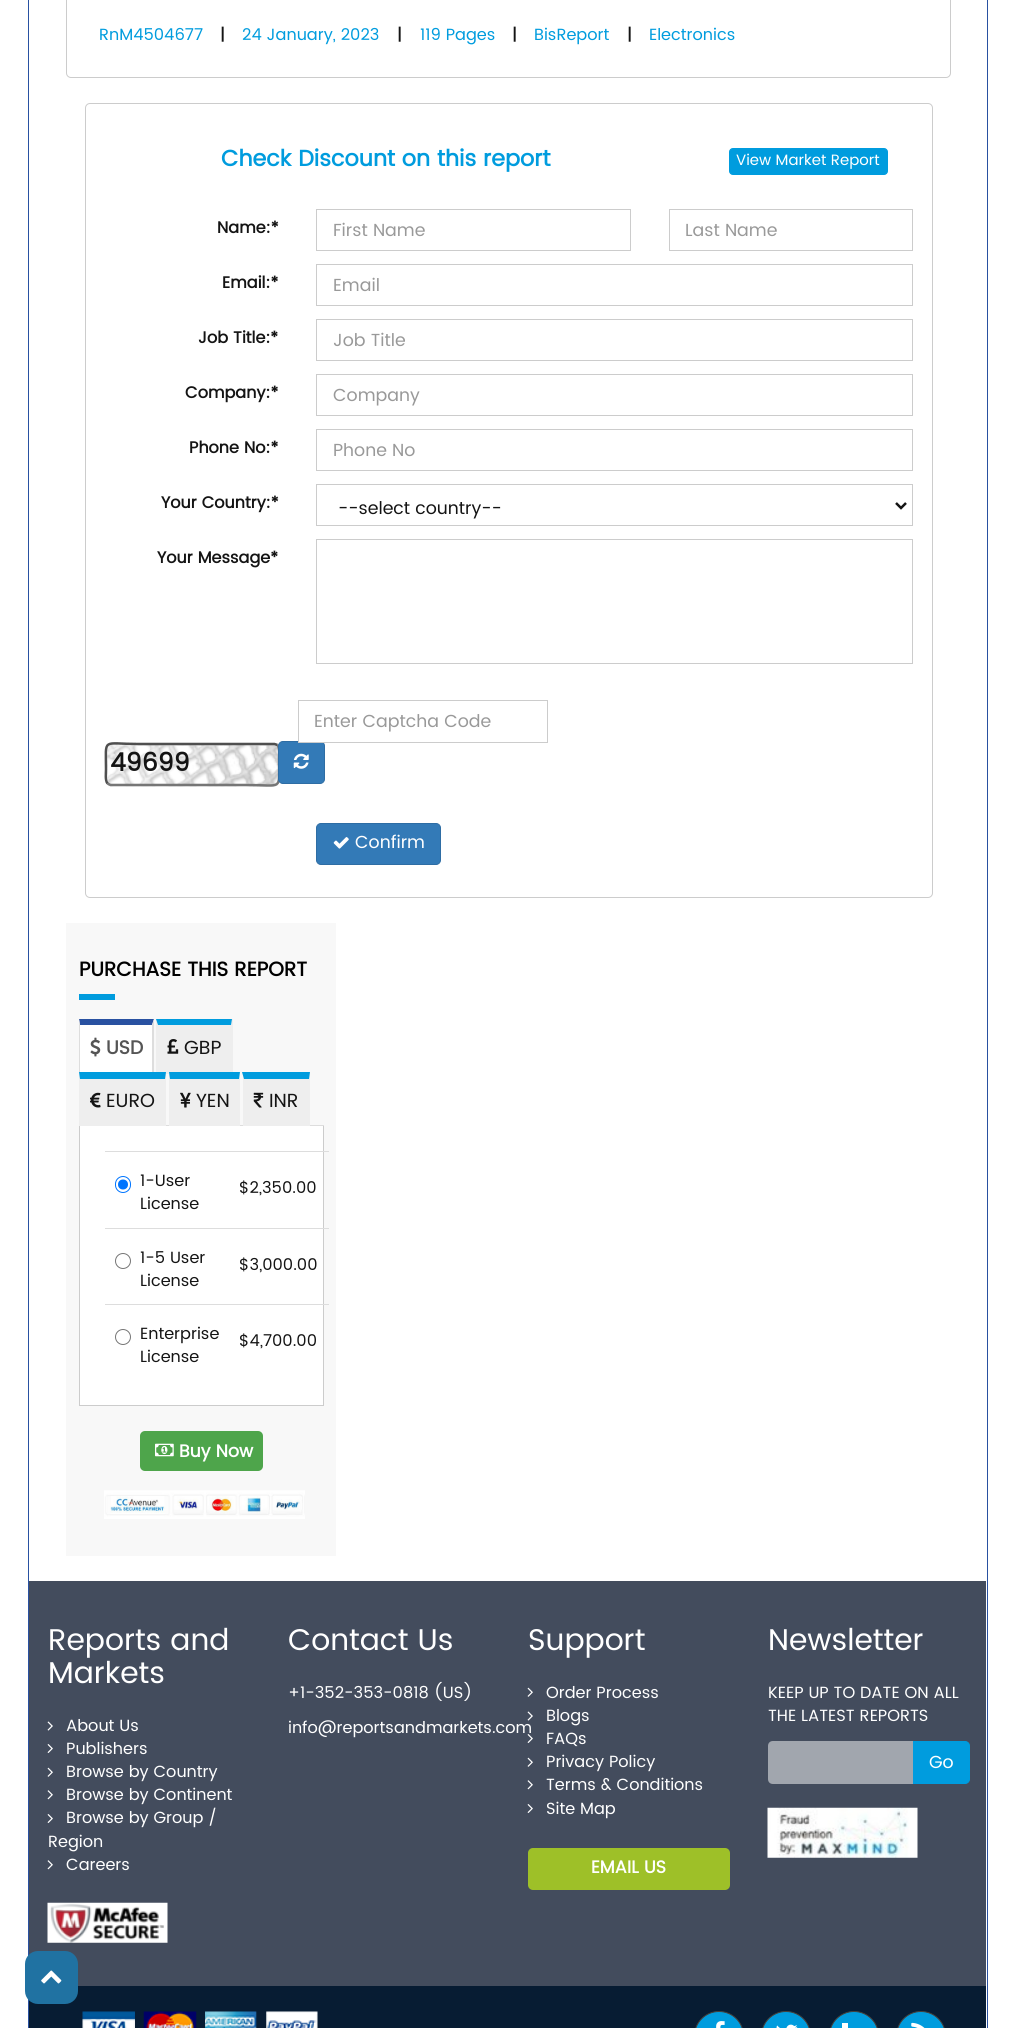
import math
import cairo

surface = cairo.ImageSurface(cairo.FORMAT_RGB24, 1014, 2028)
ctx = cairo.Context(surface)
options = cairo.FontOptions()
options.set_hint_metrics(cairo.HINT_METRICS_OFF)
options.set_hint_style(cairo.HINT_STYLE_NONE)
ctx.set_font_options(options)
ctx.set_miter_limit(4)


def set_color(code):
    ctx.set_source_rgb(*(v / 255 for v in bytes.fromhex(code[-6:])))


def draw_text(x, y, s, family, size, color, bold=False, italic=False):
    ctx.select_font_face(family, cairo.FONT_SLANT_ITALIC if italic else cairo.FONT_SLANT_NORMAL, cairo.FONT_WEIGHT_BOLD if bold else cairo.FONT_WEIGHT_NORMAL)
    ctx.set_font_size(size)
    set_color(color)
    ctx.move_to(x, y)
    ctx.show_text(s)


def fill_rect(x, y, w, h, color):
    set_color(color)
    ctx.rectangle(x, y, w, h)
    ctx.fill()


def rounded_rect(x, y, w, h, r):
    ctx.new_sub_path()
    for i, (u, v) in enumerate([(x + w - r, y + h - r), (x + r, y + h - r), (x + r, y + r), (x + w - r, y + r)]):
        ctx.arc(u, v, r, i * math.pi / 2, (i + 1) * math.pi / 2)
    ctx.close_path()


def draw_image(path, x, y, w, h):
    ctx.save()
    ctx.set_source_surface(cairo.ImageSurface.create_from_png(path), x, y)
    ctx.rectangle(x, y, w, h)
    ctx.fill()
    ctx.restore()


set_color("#ffffff")
ctx.paint()
ctx.rectangle(28.5, -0.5, 959, 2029)
set_color("#2951a1")
ctx.set_line_width(1)
ctx.stroke()
rounded_rect(66.5, -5.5, 884, 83, 4.5)
set_color("#cccccc")
ctx.stroke()
draw_text(99, 40, "RnM4504677", "Poppins", 16.25, "#009cde")
draw_text(220, 40, "|", "Poppins", 16.25, "#141414", bold=True)
draw_text(242, 40, "24 January, 2023", "Poppins", 16.25, "#009cde")
draw_text(397, 40, "|", "Poppins", 16.25, "#141414", bold=True)
draw_text(420, 40, "119 Pages", "Poppins", 16.25, "#009cde")
draw_text(512, 40, "|", "Poppins", 16.25, "#141414", bold=True)
draw_text(534, 40, "BisReport", "Poppins", 16.25, "#009cde")
draw_text(627, 40, "|", "Poppins", 16.25, "#141414", bold=True)
draw_text(649, 40, "Electronics", "Poppins", 16.25, "#009cde")
rounded_rect(85.5, 103.5, 847, 794, 4.5)
set_color("#cccccc")
ctx.stroke()
draw_text(221, 166, "Check Discount on this report", "Poppins", 22.5, "#009cde", bold=True)
rounded_rect(729.5, 148.5, 158, 26, 3.5)
ctx.fill_preserve()
ctx.stroke()
draw_text(736, 165, "View Market Report", "Poppins", 15, "#ffffff")
draw_text(217, 233, "Name:*", "Poppins", 16.25, "#141414", bold=True)
ctx.rectangle(316.5, 209.5, 314, 41)
set_color("#cccccc")
ctx.stroke()
draw_text(333, 236, "First Name", "Poppins", 17.5, "#999999")
ctx.rectangle(669.5, 209.5, 243, 41)
set_color("#cccccc")
ctx.stroke()
draw_text(685, 236, "Last Name", "Poppins", 17.5, "#999999")
draw_text(222, 288, "Email:*", "Poppins", 16.25, "#141414", bold=True)
ctx.rectangle(316.5, 264.5, 596, 41)
set_color("#cccccc")
ctx.stroke()
draw_text(333, 291, "Email", "Poppins", 17.5, "#999999")
draw_text(198, 343, "Job Title:*", "Poppins", 16.25, "#141414", bold=True)
ctx.rectangle(316.5, 319.5, 596, 41)
set_color("#cccccc")
ctx.stroke()
draw_text(333, 346, "Job Title", "Poppins", 17.5, "#999999")
draw_text(185, 398, "Company:*", "Poppins", 16.25, "#141414", bold=True)
ctx.rectangle(316.5, 374.5, 596, 41)
set_color("#cccccc")
ctx.stroke()
draw_text(333, 401, "Company", "Poppins", 17.5, "#999999")
draw_text(189, 453, "Phone No:*", "Poppins", 16.25, "#141414", bold=True)
ctx.rectangle(316.5, 429.5, 596, 41)
set_color("#cccccc")
ctx.stroke()
draw_text(333, 456, "Phone No", "Poppins", 17.5, "#999999")
draw_text(161, 508, "Your Country:*", "Poppins", 16.25, "#141414", bold=True)
ctx.rectangle(316.5, 484.5, 596, 41)
set_color("#cccccc")
ctx.stroke()
ctx.new_path()
ctx.move_to(896, 503)
ctx.line_to(901, 508)
ctx.line_to(906, 503)
set_color("#141414")
ctx.set_line_width(2.5)
ctx.stroke()
draw_text(338, 514, "--select country--", "Poppins", 17.5, "#141414")
draw_text(157, 563, "Your Message*", "Poppins", 16.25, "#141414", bold=True)
ctx.rectangle(316.5, 539.5, 596, 124)
set_color("#cccccc")
ctx.set_line_width(1)
ctx.stroke()
draw_image("assets/img1.png", 105, 743, 174, 44)
ctx.new_path()
ctx.move_to(277.5, 745)
ctx.curve_to(280, 748, 279, 756, 279, 759)
ctx.curve_to(279, 791.5, 283.5, 785, 246.5, 785)
ctx.line_to(110.5, 785)
ctx.line_to(107.5, 783.5)
set_color("#767676")
ctx.set_line_width(2.5)
ctx.stroke()
set_color("#337ab7")
rounded_rect(278.5, 741.5, 46, 42, 4.5)
ctx.fill_preserve()
set_color("#2e6da4")
ctx.set_line_width(1)
ctx.stroke()
fill_rect(299, 741, 24, 1, "#ffffff")
ctx.rectangle(298.5, 700.5, 249, 42)
set_color("#cccccc")
ctx.stroke()
draw_text(314, 727, "Enter Captcha Code", "Poppins", 17.5, "#999999")
ctx.new_path()
ctx.move_to(107.5, 783.5)
ctx.curve_to(105, 780.5, 106, 773, 106, 769.5)
ctx.curve_to(106, 737, 101.5, 744, 138.5, 744)
ctx.line_to(274.5, 744)
ctx.line_to(277.5, 745)
set_color("#4f4f4f")
ctx.set_line_width(2.5)
ctx.stroke()
draw_text(110, 771, "49699", "Poppins", 25, "#141414", bold=True)
draw_image("assets/img2.png", 293, 753, 16, 16)
set_color("#337ab7")
rounded_rect(316.5, 823.5, 124, 41, 4.5)
ctx.fill_preserve()
set_color("#2e6da4")
ctx.set_line_width(1)
ctx.stroke()
draw_image("assets/img3.png", 333, 837, 16, 12)
draw_text(355, 848, "Confirm", "Poppins", 17.5, "#ffffff")
fill_rect(66, 923, 270, 633, "#f8f8f8")
draw_text(79, 976, "PURCHASE THIS REPORT", "Poppins", 20, "#000000", bold=True)
fill_rect(79, 994, 36, 6, "#009cde")
fill_rect(166, 1125, 158, 1, "#dddddd")
fill_rect(79, 1019, 75, 54, "#ffffff")
set_color("#2951a1")
ctx.new_path()
ctx.move_to(79, 1019)
ctx.line_to(154, 1019)
ctx.line_to(152, 1025)
ctx.line_to(80, 1025)
ctx.close_path()
ctx.fill()
set_color("#dddddd")
ctx.new_path()
ctx.move_to(154, 1019)
ctx.line_to(154, 1074)
ctx.line_to(152, 1072)
ctx.line_to(152, 1025)
ctx.close_path()
ctx.fill()
ctx.new_path()
ctx.move_to(79, 1074)
ctx.line_to(79, 1019)
ctx.line_to(80, 1025)
ctx.line_to(80, 1072)
ctx.close_path()
ctx.fill()
draw_image("assets/img4.png", 90, 1037, 11, 20)
draw_text(106, 1054, "USD", "Poppins", 19, "#555555", bold=True)
fill_rect(156, 1019, 77, 55, "#eeeeee")
set_color("#009cde")
ctx.new_path()
ctx.move_to(156, 1019)
ctx.line_to(232, 1019)
ctx.line_to(231, 1025)
ctx.line_to(158, 1025)
ctx.close_path()
ctx.fill()
draw_image("assets/img5.png", 167, 1039, 12, 15)
draw_text(184, 1054, "GBP", "Poppins", 19, "#141414")
fill_rect(79, 1073, 87, 53, "#eeeeee")
set_color("#009cde")
ctx.new_path()
ctx.move_to(79, 1072)
ctx.line_to(166, 1072)
ctx.line_to(165, 1079)
ctx.line_to(80, 1079)
ctx.close_path()
ctx.fill()
draw_image("assets/img6.png", 90, 1092, 11, 16)
draw_text(106, 1107, "EURO", "Poppins", 19, "#141414")
fill_rect(169, 1073, 71, 53, "#eeeeee")
set_color("#009cde")
ctx.new_path()
ctx.move_to(169, 1072)
ctx.line_to(240, 1072)
ctx.line_to(239, 1079)
ctx.line_to(170, 1079)
ctx.close_path()
ctx.fill()
draw_image("assets/img7.png", 180, 1092, 11, 16)
draw_text(196, 1107, "YEN", "Poppins", 19, "#141414")
fill_rect(243, 1073, 67, 53, "#eeeeee")
set_color("#009cde")
ctx.new_path()
ctx.move_to(242, 1072)
ctx.line_to(310, 1072)
ctx.line_to(309, 1079)
ctx.line_to(244, 1079)
ctx.close_path()
ctx.fill()
draw_image("assets/img8.png", 253, 1092, 11, 16)
draw_text(269, 1107, "INR", "Poppins", 19, "#141414")
fill_rect(80, 1126, 243, 279, "#ffffff")
fill_rect(323, 1126, 1, 280, "#cccccc")
fill_rect(79, 1405, 245, 1, "#cccccc")
fill_rect(79, 1126, 1, 280, "#cccccc")
rounded_rect(115.5, 1176.5, 15, 16, 7.5)
set_color("#0075ff")
ctx.stroke()
ctx.arc(123, 1184.5, 5, 0, 2 * math.pi)
ctx.fill()
draw_text(140, 1186, "1-User", "Poppins", 16.25, "#141414")
draw_text(140, 1209, "License", "Poppins", 16.25, "#141414")
fill_rect(105, 1151, 224, 1, "#dddddd")
draw_text(239, 1193, "$2,350.00", "Poppins", 16.25, "#141414")
ctx.new_path()
ctx.arc(123, 1261, 7.5, 0, 2 * math.pi)
set_color("#767676")
ctx.stroke()
draw_text(140, 1263, "1-5 User", "Poppins", 16.25, "#141414")
draw_text(140, 1286, "License", "Poppins", 16.25, "#141414")
fill_rect(105, 1228, 224, 1, "#dddddd")
draw_text(239, 1270, "$3,000.00", "Poppins", 16.25, "#141414")
ctx.new_path()
ctx.arc(123, 1337, 7.5, 0, 2 * math.pi)
set_color("#767676")
ctx.stroke()
draw_text(140, 1339, "Enterprise", "Poppins", 16.25, "#141414")
draw_text(140, 1362, "License", "Poppins", 16.25, "#141414")
fill_rect(105, 1304, 224, 1, "#dddddd")
draw_text(239, 1346, "$4,700.00", "Poppins", 16.25, "#141414")
set_color("#4ea54b")
rounded_rect(140, 1431, 123, 40, 5)
ctx.fill()
draw_image("assets/img9.png", 155, 1443, 19, 14)
draw_text(179, 1457, "Buy Now", "Poppins", 17.5, "#ffffff", bold=True)
draw_image("assets/img10.png", 104, 1490, 201, 29)
fill_rect(29, 1581, 957, 405, "#434c5d")
draw_text(48, 1650, "Reports and", "Poppins", 30, "#ffffff")
draw_text(48, 1683, "Markets", "Poppins", 30, "#ffffff")
draw_image("assets/img11.png", 47, 1721, 6, 10)
draw_text(66, 1731, "About Us", "Poppins", 16.25, "#ffffff")
draw_image("assets/img12.png", 47, 1744, 6, 9)
draw_text(66, 1754, "Publishers", "Poppins", 16.25, "#ffffff")
draw_image("assets/img13.png", 47, 1767, 6, 10)
draw_text(66, 1777, "Browse by Country", "Poppins", 16.25, "#ffffff")
draw_image("assets/img14.png", 47, 1790, 6, 10)
draw_text(66, 1800, "Browse by Continent", "Poppins", 16.25, "#ffffff")
draw_image("assets/img12.png", 47, 1814, 6, 9)
draw_text(66, 1823, "Browse by Group /", "Poppins", 16.25, "#ffffff")
draw_text(48, 1847, "Region", "Poppins", 16.25, "#ffffff")
draw_image("assets/img14.png", 47, 1860, 6, 10)
draw_text(66, 1870, "Careers", "Poppins", 16.25, "#ffffff")
draw_image("assets/img15.png", 47, 1902, 121, 41)
draw_text(288, 1650, "Contact Us", "Poppins", 30, "#ffffff")
draw_text(288, 1698, "+1-352-353-0818 (US)", "Poppins", 16.25, "#ffffff")
draw_text(288, 1733, "info@reportsandmarkets.com", "Poppins", 16.25, "#ffffff")
draw_text(528, 1650, "Support", "Poppins", 30, "#ffffff")
draw_image("assets/img13.png", 527, 1687, 6, 10)
draw_text(546, 1698, "Order Process", "Poppins", 16.25, "#ffffff")
draw_image("assets/img11.png", 527, 1711, 6, 10)
draw_text(546, 1721, "Blogs", "Poppins", 16.25, "#ffffff")
draw_image("assets/img12.png", 527, 1734, 6, 9)
draw_text(546, 1744, "FAQs", "Poppins", 16.25, "#ffffff")
draw_image("assets/img13.png", 527, 1757, 6, 10)
draw_text(546, 1767, "Privacy Policy", "Poppins", 16.25, "#ffffff")
draw_image("assets/img14.png", 527, 1780, 6, 10)
draw_text(546, 1790, "Terms & Conditions", "Poppins", 16.25, "#ffffff")
draw_image("assets/img12.png", 527, 1804, 6, 9)
draw_text(546, 1814, "Site Map", "Poppins", 16.25, "#ffffff")
set_color("#9ec028")
rounded_rect(528, 1848, 202, 42, 5)
ctx.fill()
draw_text(591, 1873, "EMAIL US", "Poppins", 17.5, "#ffffff", bold=True)
draw_text(768, 1650, "Newsletter", "Poppins", 30, "#ffffff")
draw_text(768, 1698, "KEEP UP TO DATE ON ALL", "Poppins", 16.25, "#ffffff")
draw_text(768, 1721, "THE LATEST REPORTS", "Poppins", 16.25, "#ffffff")
set_color("#a1a6ae")
ctx.new_path()
ctx.move_to(773, 1741)
ctx.line_to(914, 1741)
ctx.line_to(914, 1784)
ctx.line_to(773, 1784)
ctx.curve_to(770, 1784, 768, 1782, 768, 1779)
ctx.line_to(768, 1746)
ctx.curve_to(768, 1743, 770, 1741, 773, 1741)
ctx.close_path()
ctx.fill()
set_color("#009cde")
ctx.new_path()
ctx.move_to(913.5, 1741.5)
ctx.line_to(965, 1741.5)
ctx.curve_to(967.5, 1741.5, 969.5, 1743.5, 969.5, 1746)
ctx.line_to(969.5, 1779)
ctx.curve_to(969.5, 1781.5, 967.5, 1783.5, 965, 1783.5)
ctx.line_to(913.5, 1783.5)
ctx.close_path()
ctx.fill_preserve()
ctx.stroke()
draw_text(929, 1768, "Go", "Poppins", 17.5, "#ffffff")
draw_image("assets/img16.png", 767, 1807, 151, 51)
fill_rect(29, 1986, 957, 42, "#071c33")
draw_image("assets/img17.png", 82, 2011, 53, 17)
draw_image("assets/img18.png", 143, 2011, 54, 17)
draw_image("assets/img19.png", 205, 2011, 52, 17)
draw_image("assets/img20.png", 266, 2011, 52, 17)
set_color("#009cde")
rounded_rect(694.5, 2011.5, 49, 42, 24.5)
ctx.fill_preserve()
set_color("#463f39")
ctx.stroke()
draw_image("assets/img21.png", 716, 2021, 9, 7)
set_color("#009cde")
rounded_rect(761.5, 2011.5, 49, 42, 24.5)
ctx.fill_preserve()
set_color("#463f39")
ctx.stroke()
draw_image("assets/img22.png", 776, 2024, 22, 4)
set_color("#009cde")
rounded_rect(829.5, 2011.5, 49, 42, 24.5)
ctx.fill_preserve()
set_color("#463f39")
ctx.stroke()
fill_rect(842, 2023, 6, 5, "#ffffff")
set_color("#009cde")
rounded_rect(896.5, 2011.5, 49, 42, 24.5)
ctx.fill_preserve()
set_color("#463f39")
ctx.stroke()
draw_image("assets/img23.png", 911, 2022, 14, 6)
set_color("#2072a2")
rounded_rect(25, 1951, 53, 53, 13)
ctx.fill()
draw_image("assets/img24.png", 41, 1970, 21, 14)
surface.write_to_png("output.png")
